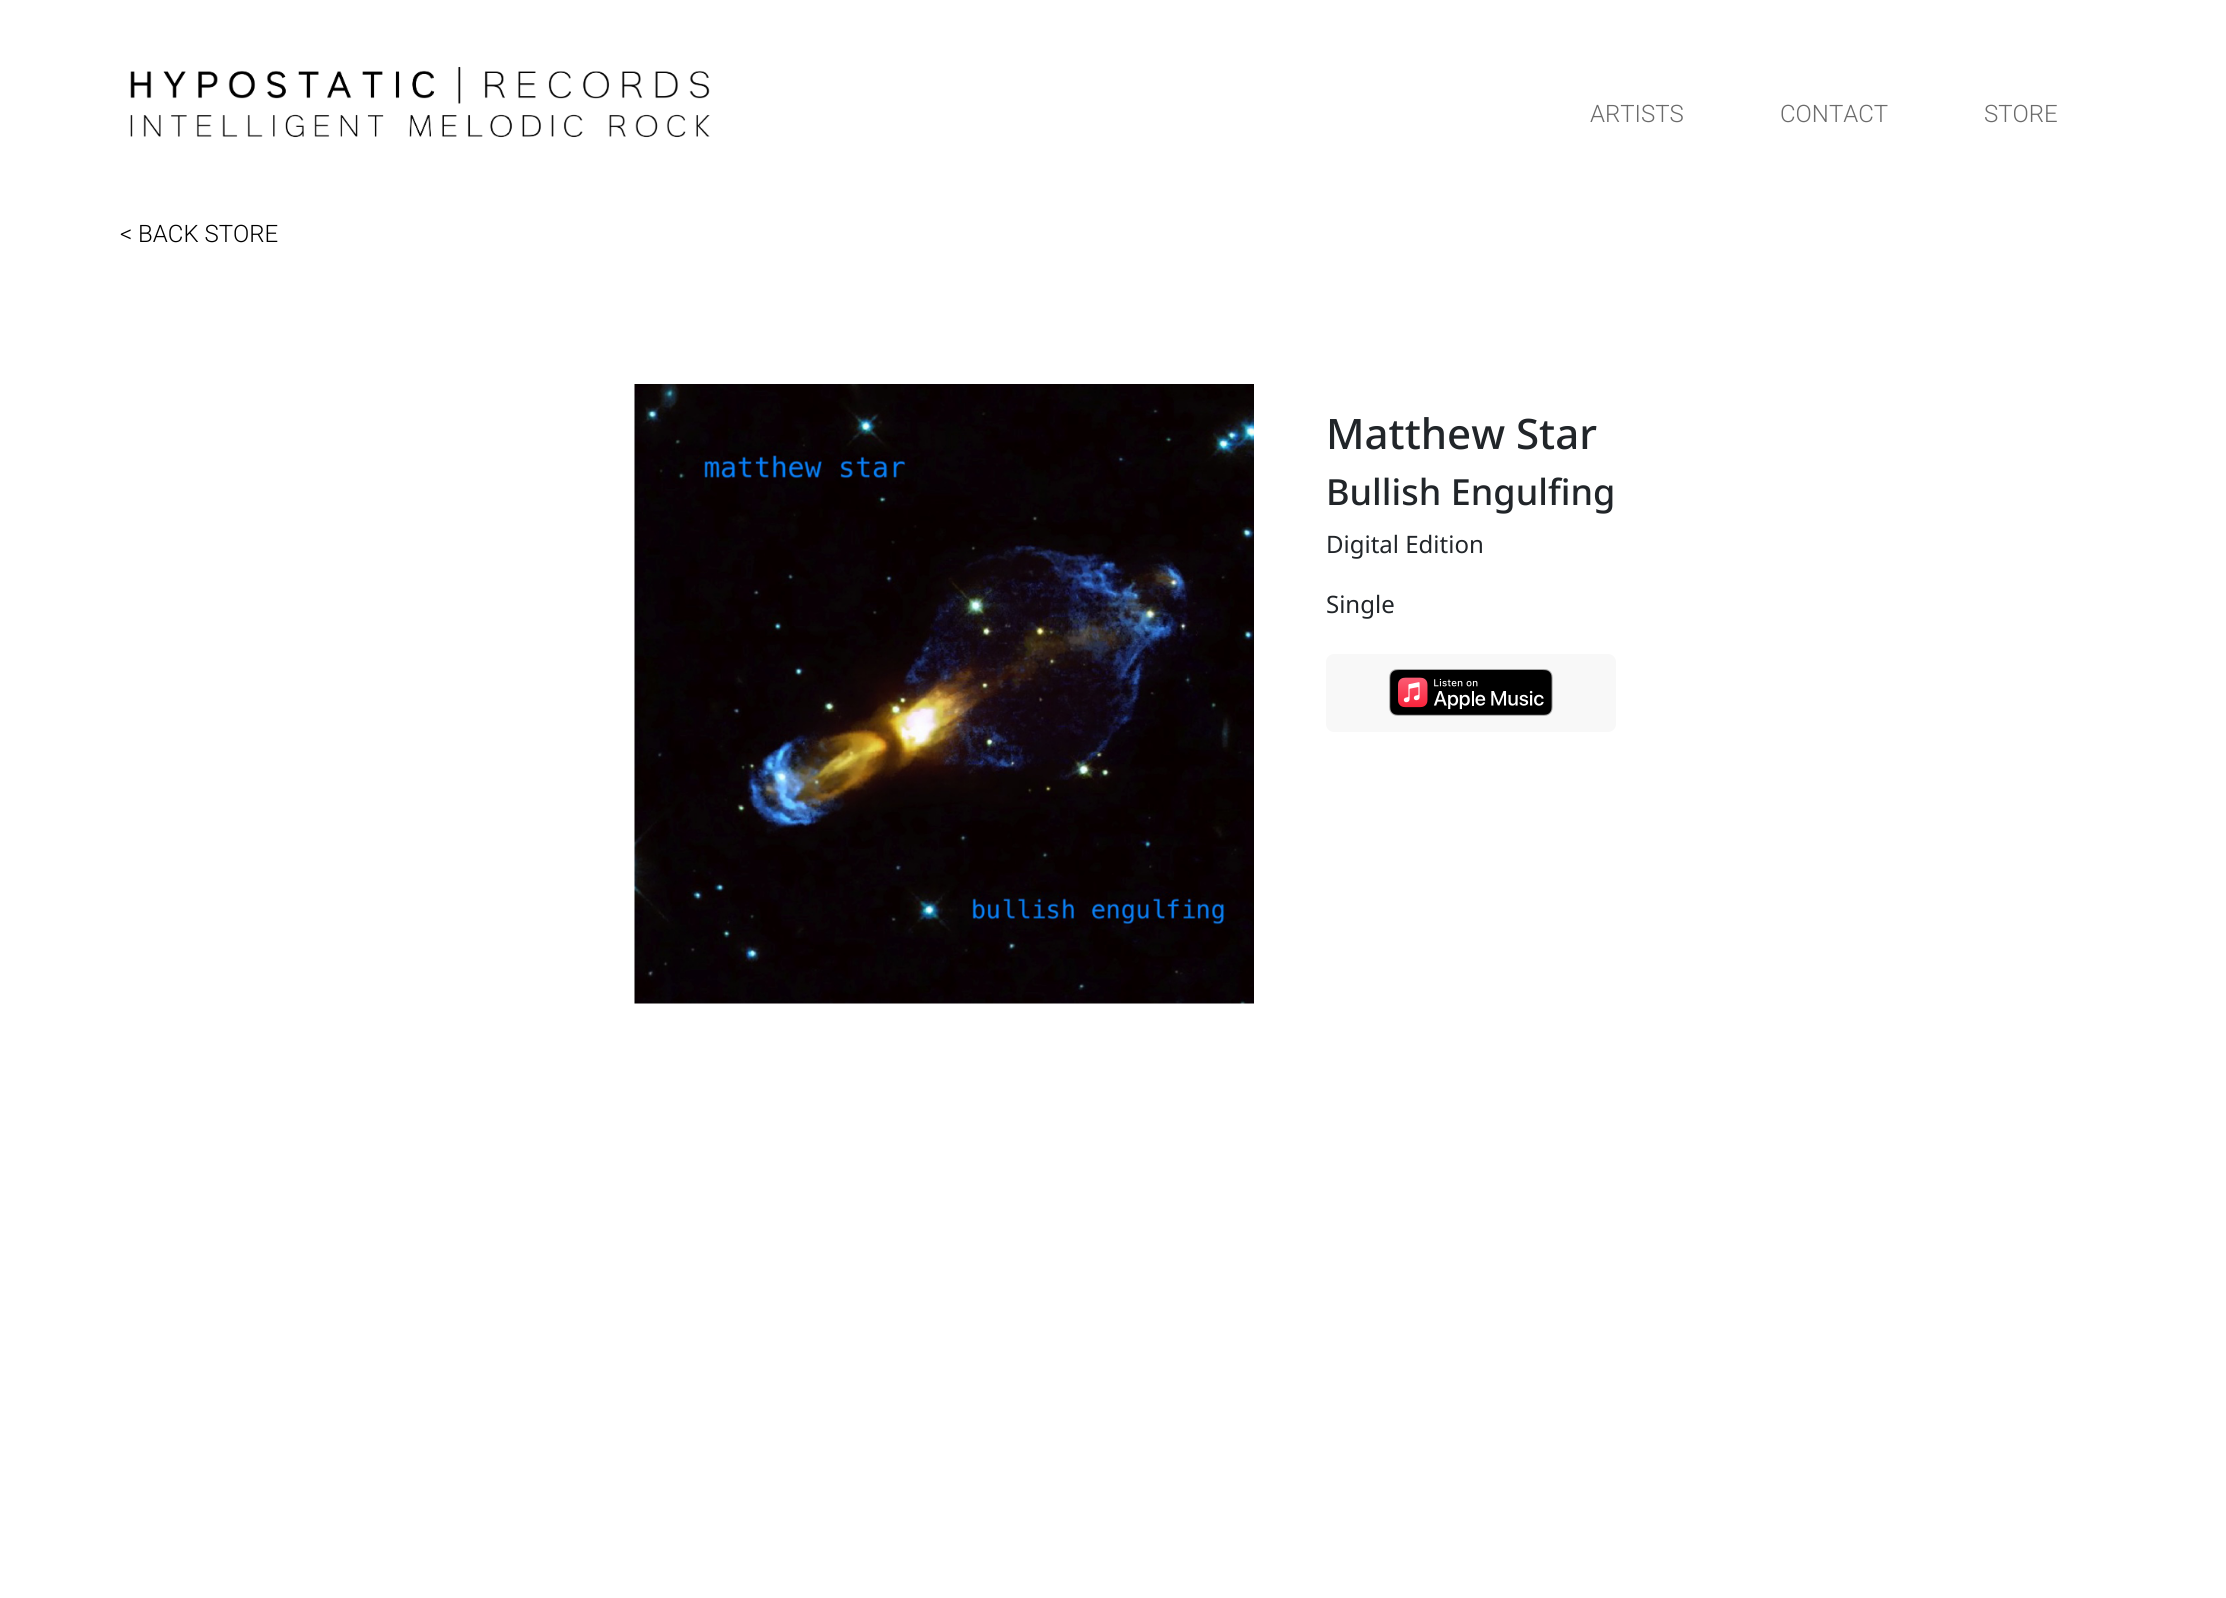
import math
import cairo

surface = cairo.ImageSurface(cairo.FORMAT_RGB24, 2226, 1598)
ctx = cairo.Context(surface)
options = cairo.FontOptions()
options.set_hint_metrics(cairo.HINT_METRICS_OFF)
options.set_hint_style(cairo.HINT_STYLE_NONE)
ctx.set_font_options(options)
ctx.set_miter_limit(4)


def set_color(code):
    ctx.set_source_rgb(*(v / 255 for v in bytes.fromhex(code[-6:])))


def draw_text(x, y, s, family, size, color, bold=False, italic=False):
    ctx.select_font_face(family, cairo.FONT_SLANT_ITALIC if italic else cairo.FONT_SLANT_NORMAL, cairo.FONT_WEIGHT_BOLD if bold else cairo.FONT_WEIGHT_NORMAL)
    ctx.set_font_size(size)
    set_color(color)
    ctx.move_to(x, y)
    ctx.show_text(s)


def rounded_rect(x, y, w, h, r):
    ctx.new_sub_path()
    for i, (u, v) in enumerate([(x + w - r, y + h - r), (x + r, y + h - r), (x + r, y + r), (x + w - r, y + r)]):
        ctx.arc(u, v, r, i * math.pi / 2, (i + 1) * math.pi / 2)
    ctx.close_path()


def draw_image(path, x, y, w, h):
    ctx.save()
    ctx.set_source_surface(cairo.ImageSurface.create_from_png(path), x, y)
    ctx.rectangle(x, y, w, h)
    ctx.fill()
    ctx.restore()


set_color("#ffffff")
ctx.paint()
draw_image("assets/img1.png", 130, 66, 580, 72)
draw_text(1590, 122, "ARTISTS", "Roboto Light", 24, "#6b6b6b")
draw_text(1780, 122, "CONTACT", "Roboto Light", 24, "#6b6b6b")
draw_text(1984, 122, "STORE", "Roboto Light", 24, "#6b6b6b")
draw_text(120, 242, "< BACK STORE", "Roboto Light", 24, "#000000")
draw_image("assets/img2.png", 634, 384, 620, 620)
draw_text(1326, 449, "Matthew Star", "Noto Sans Medium", 42, "#212529")
draw_text(1326, 505, "Bullish Engulfing", "Noto Sans Medium", 36, "#212529")
draw_text(1326, 553, "Digital Edition", "Noto Sans", 24, "#212529")
draw_text(1326, 613, "Single", "Noto Sans", 24, "#212529")
set_color("#f8f8f8")
rounded_rect(1326, 654, 290, 78, 8)
ctx.fill()
draw_image("assets/img3.png", 1389, 669, 164, 47)
surface.write_to_png("output.png")
